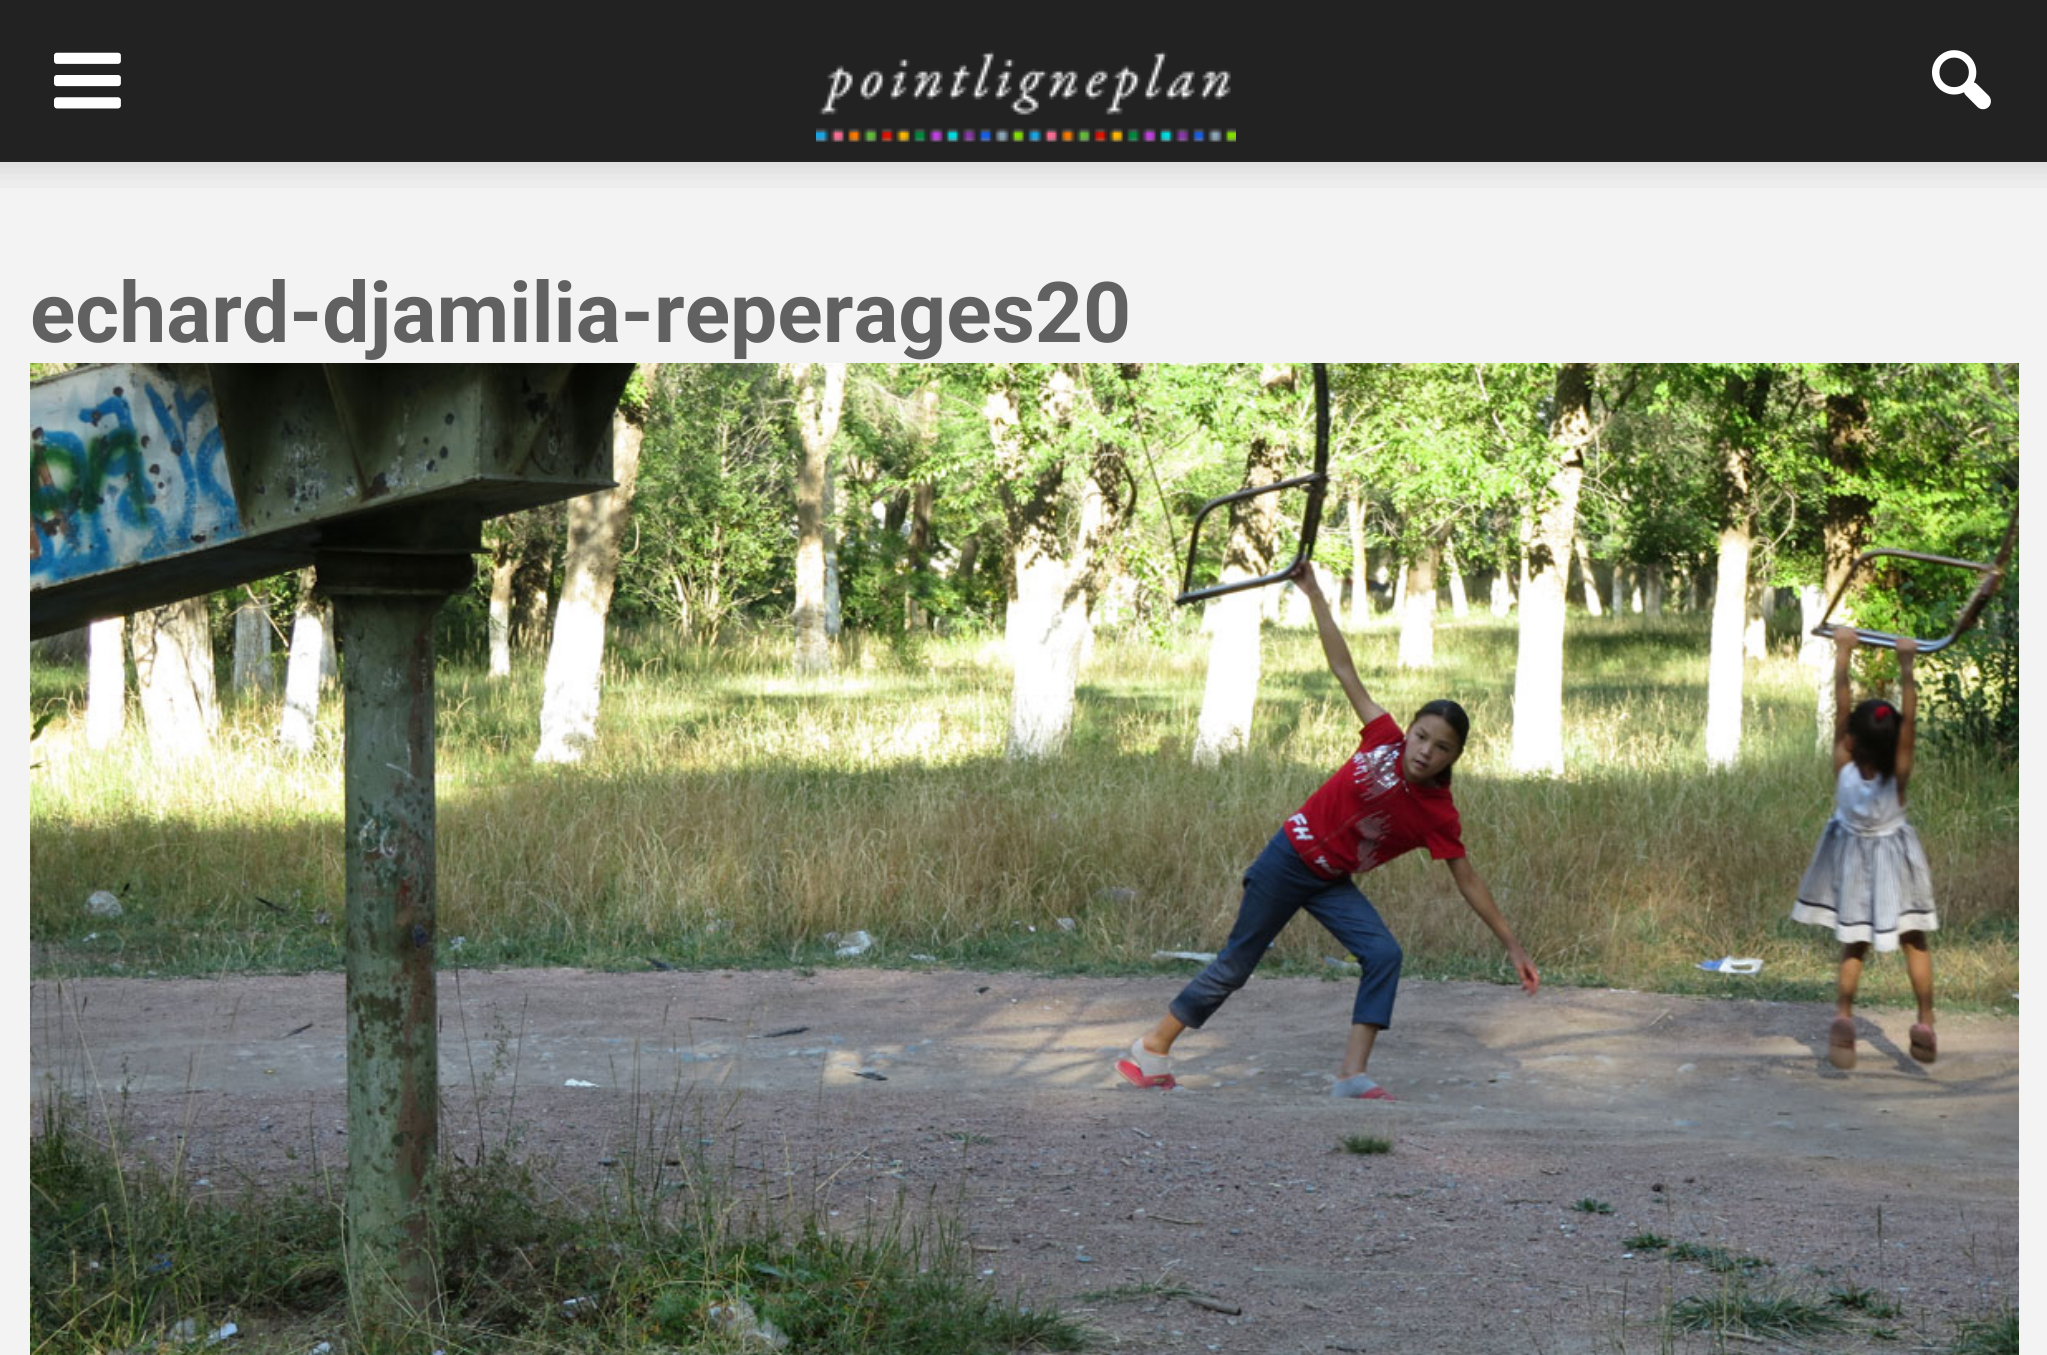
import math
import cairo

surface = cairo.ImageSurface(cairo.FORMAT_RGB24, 2047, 1355)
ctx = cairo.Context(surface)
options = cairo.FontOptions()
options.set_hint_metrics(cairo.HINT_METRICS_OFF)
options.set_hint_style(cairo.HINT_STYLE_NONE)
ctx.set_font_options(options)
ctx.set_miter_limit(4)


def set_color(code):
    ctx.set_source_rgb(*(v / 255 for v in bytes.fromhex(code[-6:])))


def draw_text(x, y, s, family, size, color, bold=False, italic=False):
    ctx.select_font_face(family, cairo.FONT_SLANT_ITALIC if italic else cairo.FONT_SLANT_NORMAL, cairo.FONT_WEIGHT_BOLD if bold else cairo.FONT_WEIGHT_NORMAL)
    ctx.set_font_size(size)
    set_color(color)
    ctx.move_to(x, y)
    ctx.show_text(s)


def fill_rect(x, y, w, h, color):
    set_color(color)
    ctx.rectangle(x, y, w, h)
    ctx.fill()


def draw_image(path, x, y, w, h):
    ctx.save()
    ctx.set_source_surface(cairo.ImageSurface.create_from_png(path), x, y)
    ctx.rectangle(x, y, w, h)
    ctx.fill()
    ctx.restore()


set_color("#f3f3f3")
ctx.paint()
fill_rect(0, 0, 2047, 162, "#222222")
draw_image("assets/img1.png", 54, 52, 67, 57)
draw_image("assets/img2.png", 816, 50, 420, 92)
draw_image("assets/img3.png", 1932, 50, 59, 60)
draw_image("assets/img4.png", 0, 162, 2047, 26)
draw_text(30, 342, "echard-djamilia-reperages20", "Roboto", 84, "#616161", bold=True)
draw_image("assets/img5.png", 30, 363, 1989, 992)
surface.write_to_png("output.png")
